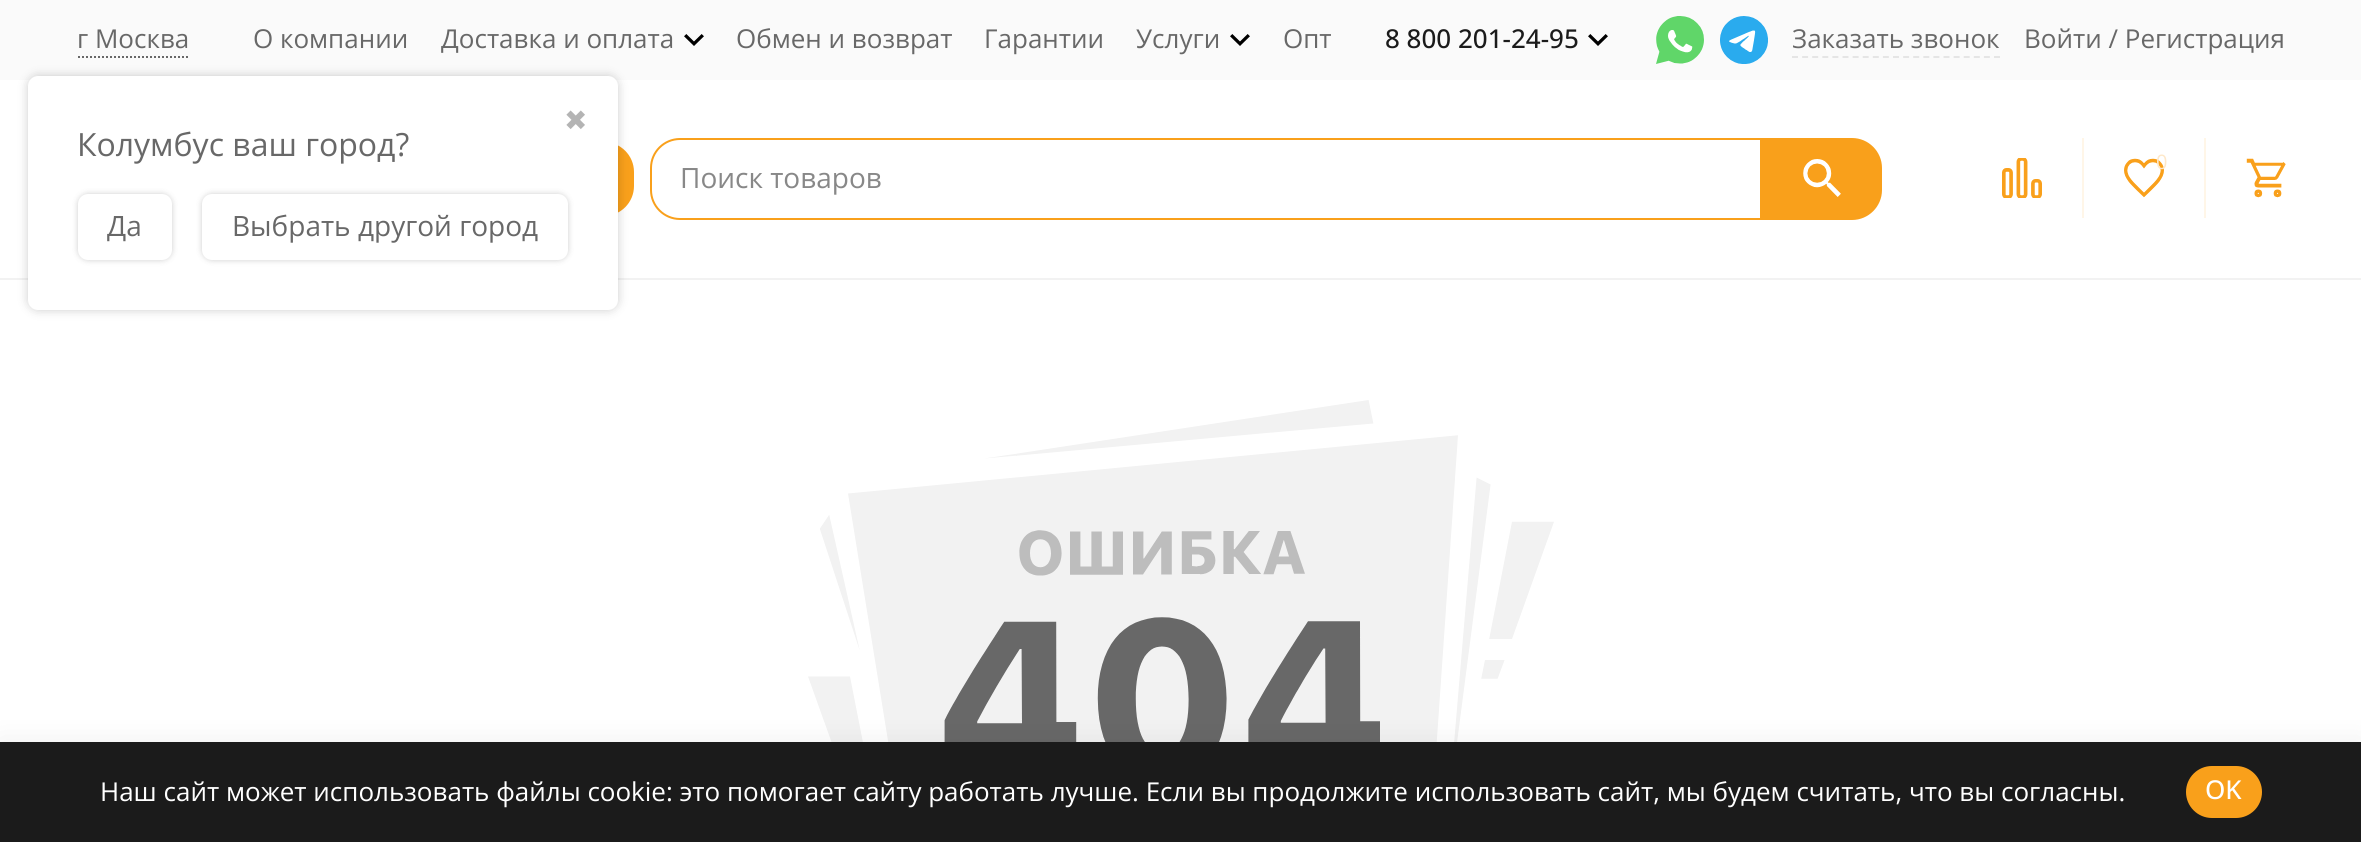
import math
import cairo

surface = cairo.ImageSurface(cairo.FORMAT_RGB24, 2361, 842)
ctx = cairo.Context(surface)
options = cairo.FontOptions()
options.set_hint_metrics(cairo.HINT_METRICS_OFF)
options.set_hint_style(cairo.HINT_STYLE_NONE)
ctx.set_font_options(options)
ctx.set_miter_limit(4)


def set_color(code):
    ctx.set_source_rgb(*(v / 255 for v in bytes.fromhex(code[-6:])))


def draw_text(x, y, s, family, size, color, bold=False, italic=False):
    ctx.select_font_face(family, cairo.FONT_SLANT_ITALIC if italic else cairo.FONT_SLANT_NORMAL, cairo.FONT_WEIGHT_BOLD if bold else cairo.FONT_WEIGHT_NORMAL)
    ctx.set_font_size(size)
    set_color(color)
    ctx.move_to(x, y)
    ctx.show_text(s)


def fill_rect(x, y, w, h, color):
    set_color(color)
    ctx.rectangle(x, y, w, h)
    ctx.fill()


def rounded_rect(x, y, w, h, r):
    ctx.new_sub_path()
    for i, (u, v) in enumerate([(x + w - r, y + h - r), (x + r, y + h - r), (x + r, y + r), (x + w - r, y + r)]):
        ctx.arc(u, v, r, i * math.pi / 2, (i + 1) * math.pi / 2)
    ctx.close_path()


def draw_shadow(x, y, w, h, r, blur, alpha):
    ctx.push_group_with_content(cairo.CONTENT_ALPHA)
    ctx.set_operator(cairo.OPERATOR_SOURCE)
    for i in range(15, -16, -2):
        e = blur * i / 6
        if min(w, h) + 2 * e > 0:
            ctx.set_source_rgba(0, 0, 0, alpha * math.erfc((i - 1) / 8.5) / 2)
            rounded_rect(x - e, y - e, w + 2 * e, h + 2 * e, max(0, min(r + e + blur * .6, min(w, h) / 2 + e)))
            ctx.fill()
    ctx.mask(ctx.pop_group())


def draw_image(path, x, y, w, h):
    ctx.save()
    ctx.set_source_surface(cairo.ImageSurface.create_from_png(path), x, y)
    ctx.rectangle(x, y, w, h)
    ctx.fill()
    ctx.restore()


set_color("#ffffff")
ctx.paint()
fill_rect(0, 278, 2361, 2, "#f2f2f2")
fill_rect(0, 0, 2361, 80, "#fafafa")
draw_text(253, 48, "О компании", "Open Sans", 26, "#686868")
draw_text(441, 48, "Доставка и оплата", "Open Sans", 26, "#686868")
draw_image("assets/img1.png", 684, 34, 20, 12)
draw_text(736, 48, "Обмен и возврат", "Open Sans", 26, "#686868")
draw_text(984, 48, "Гарантии", "Open Sans", 26, "#686868")
draw_text(1136, 48, "Услуги", "Open Sans", 26, "#686868")
draw_image("assets/img1.png", 1230, 34, 20, 12)
draw_text(1283, 48, "Опт", "Open Sans", 26, "#686868")
draw_text(2024, 48, "Войти / Регистрация", "Open Sans", 26, "#686868")
draw_text(77, 48, "г Москва", "Open Sans", 26, "#686868")
ctx.new_path()
ctx.move_to(78, 57)
ctx.line_to(190, 57)
ctx.set_dash([2, 2])
ctx.stroke()
set_color("#f9a01b")
rounded_rect(418, 142, 216, 74, 30)
ctx.fill()
set_color("#000000")
draw_shadow(28, 76, 590, 234, 10, 5, 0.2)
set_color("#ffffff")
rounded_rect(28, 76, 590, 234, 10)
ctx.fill()
draw_text(564, 130, "✖", "DejaVu Sans", 28, "#b4b4b4")
draw_text(77, 156, "Колумбус ваш город?", "Open Sans", 32, "#686868")
set_color("#000000")
draw_shadow(78, 194, 94, 66, 10, 3, 0.2)
set_color("#ffffff")
rounded_rect(78, 194, 94, 66, 10)
ctx.fill()
draw_text(107, 236, "Да", "Open Sans", 28, "#686868")
set_color("#000000")
draw_shadow(202, 194, 366, 66, 10, 3, 0.2)
set_color("#ffffff")
rounded_rect(202, 194, 366, 66, 10)
ctx.fill()
draw_text(232, 236, "Выбрать другой город", "Open Sans", 28, "#686868")
draw_text(1385, 48, "8 800 201-24-95", "Open Sans Medium", 26, "#1b1b1b")
draw_image("assets/img1.png", 1588, 34, 20, 12)
draw_image("assets/img2.png", 1656, 16, 48, 48)
draw_image("assets/img3.png", 1720, 16, 48, 48)
draw_text(1792, 48, "Заказать звонок", "Open Sans", 26, "#686868")
ctx.new_path()
ctx.move_to(1792, 57)
ctx.line_to(2000, 57)
set_color("#e5e5e5")
ctx.set_dash([6, 4.1])
ctx.stroke()
draw_image("assets/img4.png", 2002, 158, 40, 40)
fill_rect(2082, 138, 2, 80, "#fff6e8")
draw_image("assets/img5.png", 2124, 158, 40, 40)
draw_text(2156, 169, "0", "Open Sans", 20, "#fee8c9")
fill_rect(2204, 138, 2, 80, "#fff6e8")
draw_image("assets/img6.png", 2246, 158, 40, 40)
ctx.new_path()
ctx.move_to(680, 139)
ctx.line_to(1761, 139)
ctx.line_to(1761, 219)
ctx.line_to(680, 219)
ctx.curve_to(664, 219, 651, 206, 651, 190)
ctx.line_to(651, 168)
ctx.curve_to(651, 152, 664, 139, 680, 139)
ctx.close_path()
set_color("#f9a01b")
ctx.set_dash([])
ctx.stroke()
draw_text(680, 188, "Поиск товаров", "Open Sans", 28, "#888888")
set_color("#f9a01b")
ctx.new_path()
ctx.move_to(1762, 138)
ctx.line_to(1852, 138)
ctx.curve_to(1868.5, 138, 1882, 151.5, 1882, 168)
ctx.line_to(1882, 190)
ctx.curve_to(1882, 206.5, 1868.5, 220, 1852, 220)
ctx.line_to(1762, 220)
ctx.close_path()
ctx.fill()
draw_image("assets/img7.png", 1803, 159, 38, 38)
draw_image("assets/img8.png", 808, 400, 746, 342)
set_color("#000000")
draw_shadow(0, 742, 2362, 100, 0, 15, 0.07)
fill_rect(0, 742, 2361, 100, "#1b1b1b")
draw_text(100, 801, "Наш сайт может использовать файлы cookie: это помогает сайту работать лучше. Если вы продолжите использовать сайт, мы будем считать, что вы согласны.", "Open Sans", 26, "#ffffff")
set_color("#f9a01b")
rounded_rect(2186, 766, 76, 52, 26)
ctx.fill()
draw_text(2205, 799, "OK", "Open Sans Medium", 26, "#ffffff")
surface.write_to_png("output.png")
